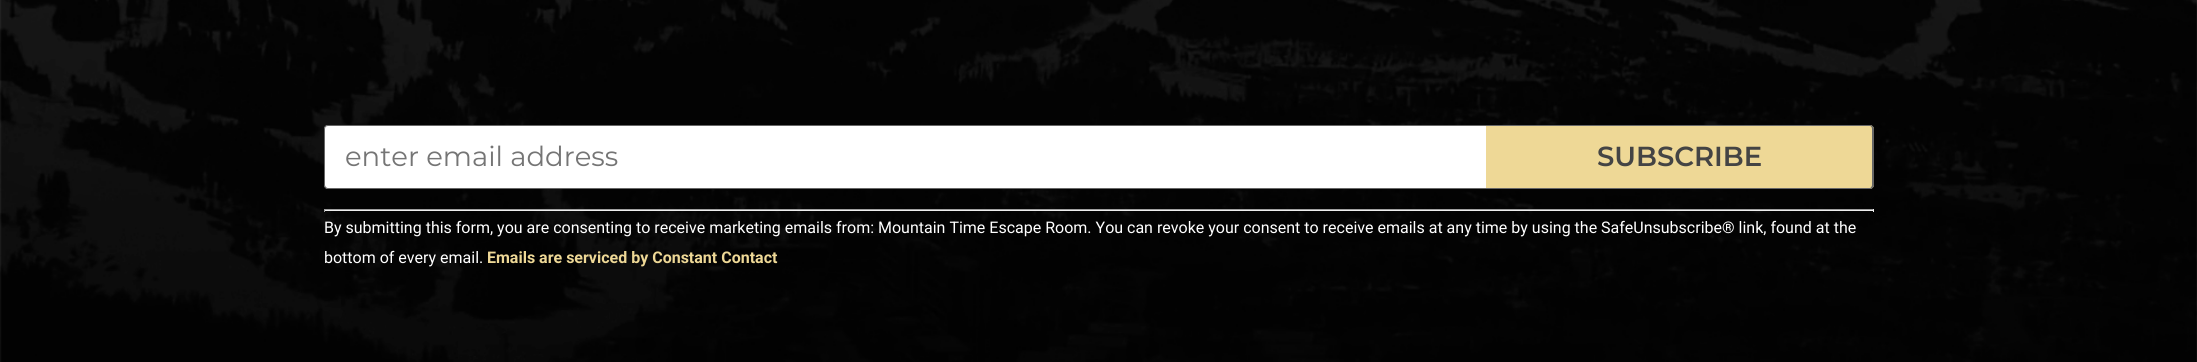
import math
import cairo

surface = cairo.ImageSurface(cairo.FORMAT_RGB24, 2197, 362)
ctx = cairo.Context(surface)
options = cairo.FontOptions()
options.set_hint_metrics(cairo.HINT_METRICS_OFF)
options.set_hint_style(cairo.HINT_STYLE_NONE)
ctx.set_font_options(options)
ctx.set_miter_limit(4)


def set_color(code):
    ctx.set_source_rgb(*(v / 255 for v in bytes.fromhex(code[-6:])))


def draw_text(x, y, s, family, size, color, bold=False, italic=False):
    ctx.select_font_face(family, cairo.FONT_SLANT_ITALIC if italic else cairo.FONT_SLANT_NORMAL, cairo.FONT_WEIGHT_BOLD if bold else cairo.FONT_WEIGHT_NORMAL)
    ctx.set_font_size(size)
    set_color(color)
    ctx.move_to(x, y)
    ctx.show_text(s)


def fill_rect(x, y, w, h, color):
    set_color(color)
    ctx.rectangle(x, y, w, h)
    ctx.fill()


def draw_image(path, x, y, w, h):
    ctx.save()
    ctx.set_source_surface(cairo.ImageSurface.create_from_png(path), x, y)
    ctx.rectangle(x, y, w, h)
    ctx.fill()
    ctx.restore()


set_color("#ffffff")
ctx.paint()
draw_image("assets/img1.png", 0, 0, 2197, 362)
set_color("#ffffff")
ctx.new_path()
ctx.move_to(328, 125)
ctx.line_to(1486, 125)
ctx.line_to(1486, 189)
ctx.line_to(328, 189)
ctx.curve_to(326, 189, 324, 187, 324, 185)
ctx.line_to(324, 129)
ctx.curve_to(324, 127, 326, 125, 328, 125)
ctx.close_path()
ctx.fill()
set_color("#666666")
ctx.set_fill_rule(cairo.FILL_RULE_EVEN_ODD)
ctx.new_path()
ctx.move_to(328, 125)
ctx.line_to(1486, 125)
ctx.line_to(1486, 189)
ctx.line_to(328, 189)
ctx.curve_to(325, 189, 324, 187, 324, 185)
ctx.line_to(324, 129)
ctx.curve_to(324, 127, 325, 125, 328, 125)
ctx.close_path()
ctx.move_to(328, 126)
ctx.line_to(1486, 126)
ctx.line_to(1486, 188)
ctx.line_to(328, 188)
ctx.curve_to(326, 188, 325, 186, 325, 185)
ctx.line_to(325, 129)
ctx.curve_to(325, 127, 326, 126, 328, 126)
ctx.close_path()
ctx.fill()
draw_text(345, 166, "enter email address", "Montserrat", 27.5, "#757575")
set_color("#eed896")
ctx.new_path()
ctx.move_to(1486, 125)
ctx.line_to(1870, 125)
ctx.curve_to(1872, 125, 1874, 127, 1874, 129)
ctx.line_to(1874, 185)
ctx.curve_to(1874, 187, 1872, 189, 1870, 189)
ctx.line_to(1486, 189)
ctx.close_path()
ctx.fill()
set_color("#666666")
ctx.new_path()
ctx.move_to(1486, 125)
ctx.line_to(1870, 125)
ctx.curve_to(1872, 125, 1874, 127, 1874, 129)
ctx.line_to(1874, 185)
ctx.curve_to(1874, 187, 1872, 189, 1870, 189)
ctx.line_to(1486, 189)
ctx.close_path()
ctx.move_to(1486, 126)
ctx.line_to(1870, 126)
ctx.curve_to(1871, 126, 1872, 127, 1872, 129)
ctx.line_to(1872, 185)
ctx.curve_to(1872, 186, 1871, 188, 1870, 188)
ctx.line_to(1486, 188)
ctx.close_path()
ctx.fill()
draw_text(1597, 166, "SUBSCRIBE", "Montserrat SemiBold", 27.5, "#444444")
fill_rect(324, 209, 1550, 1, "#9f9f9f")
fill_rect(1873, 209, 1, 3, "#eeeeee")
fill_rect(324, 210, 1550, 1, "#eeeeee")
fill_rect(324, 209, 1, 3, "#9f9f9f")
draw_text(324, 233, "By submitting this form, you are consenting to receive marketing emails from: Mountain Time Escape Room. You can revoke your consent to receive emails at any time by using the SafeUnsubscribe® link, found at the", "Roboto", 16, "#ffffff")
draw_text(324, 263, "bottom of every email.", "Roboto", 16, "#ffffff")
draw_text(487, 263, "Emails are serviced by Constant Contact", "Roboto", 16, "#eed896", bold=True)
surface.write_to_png("output.png")
